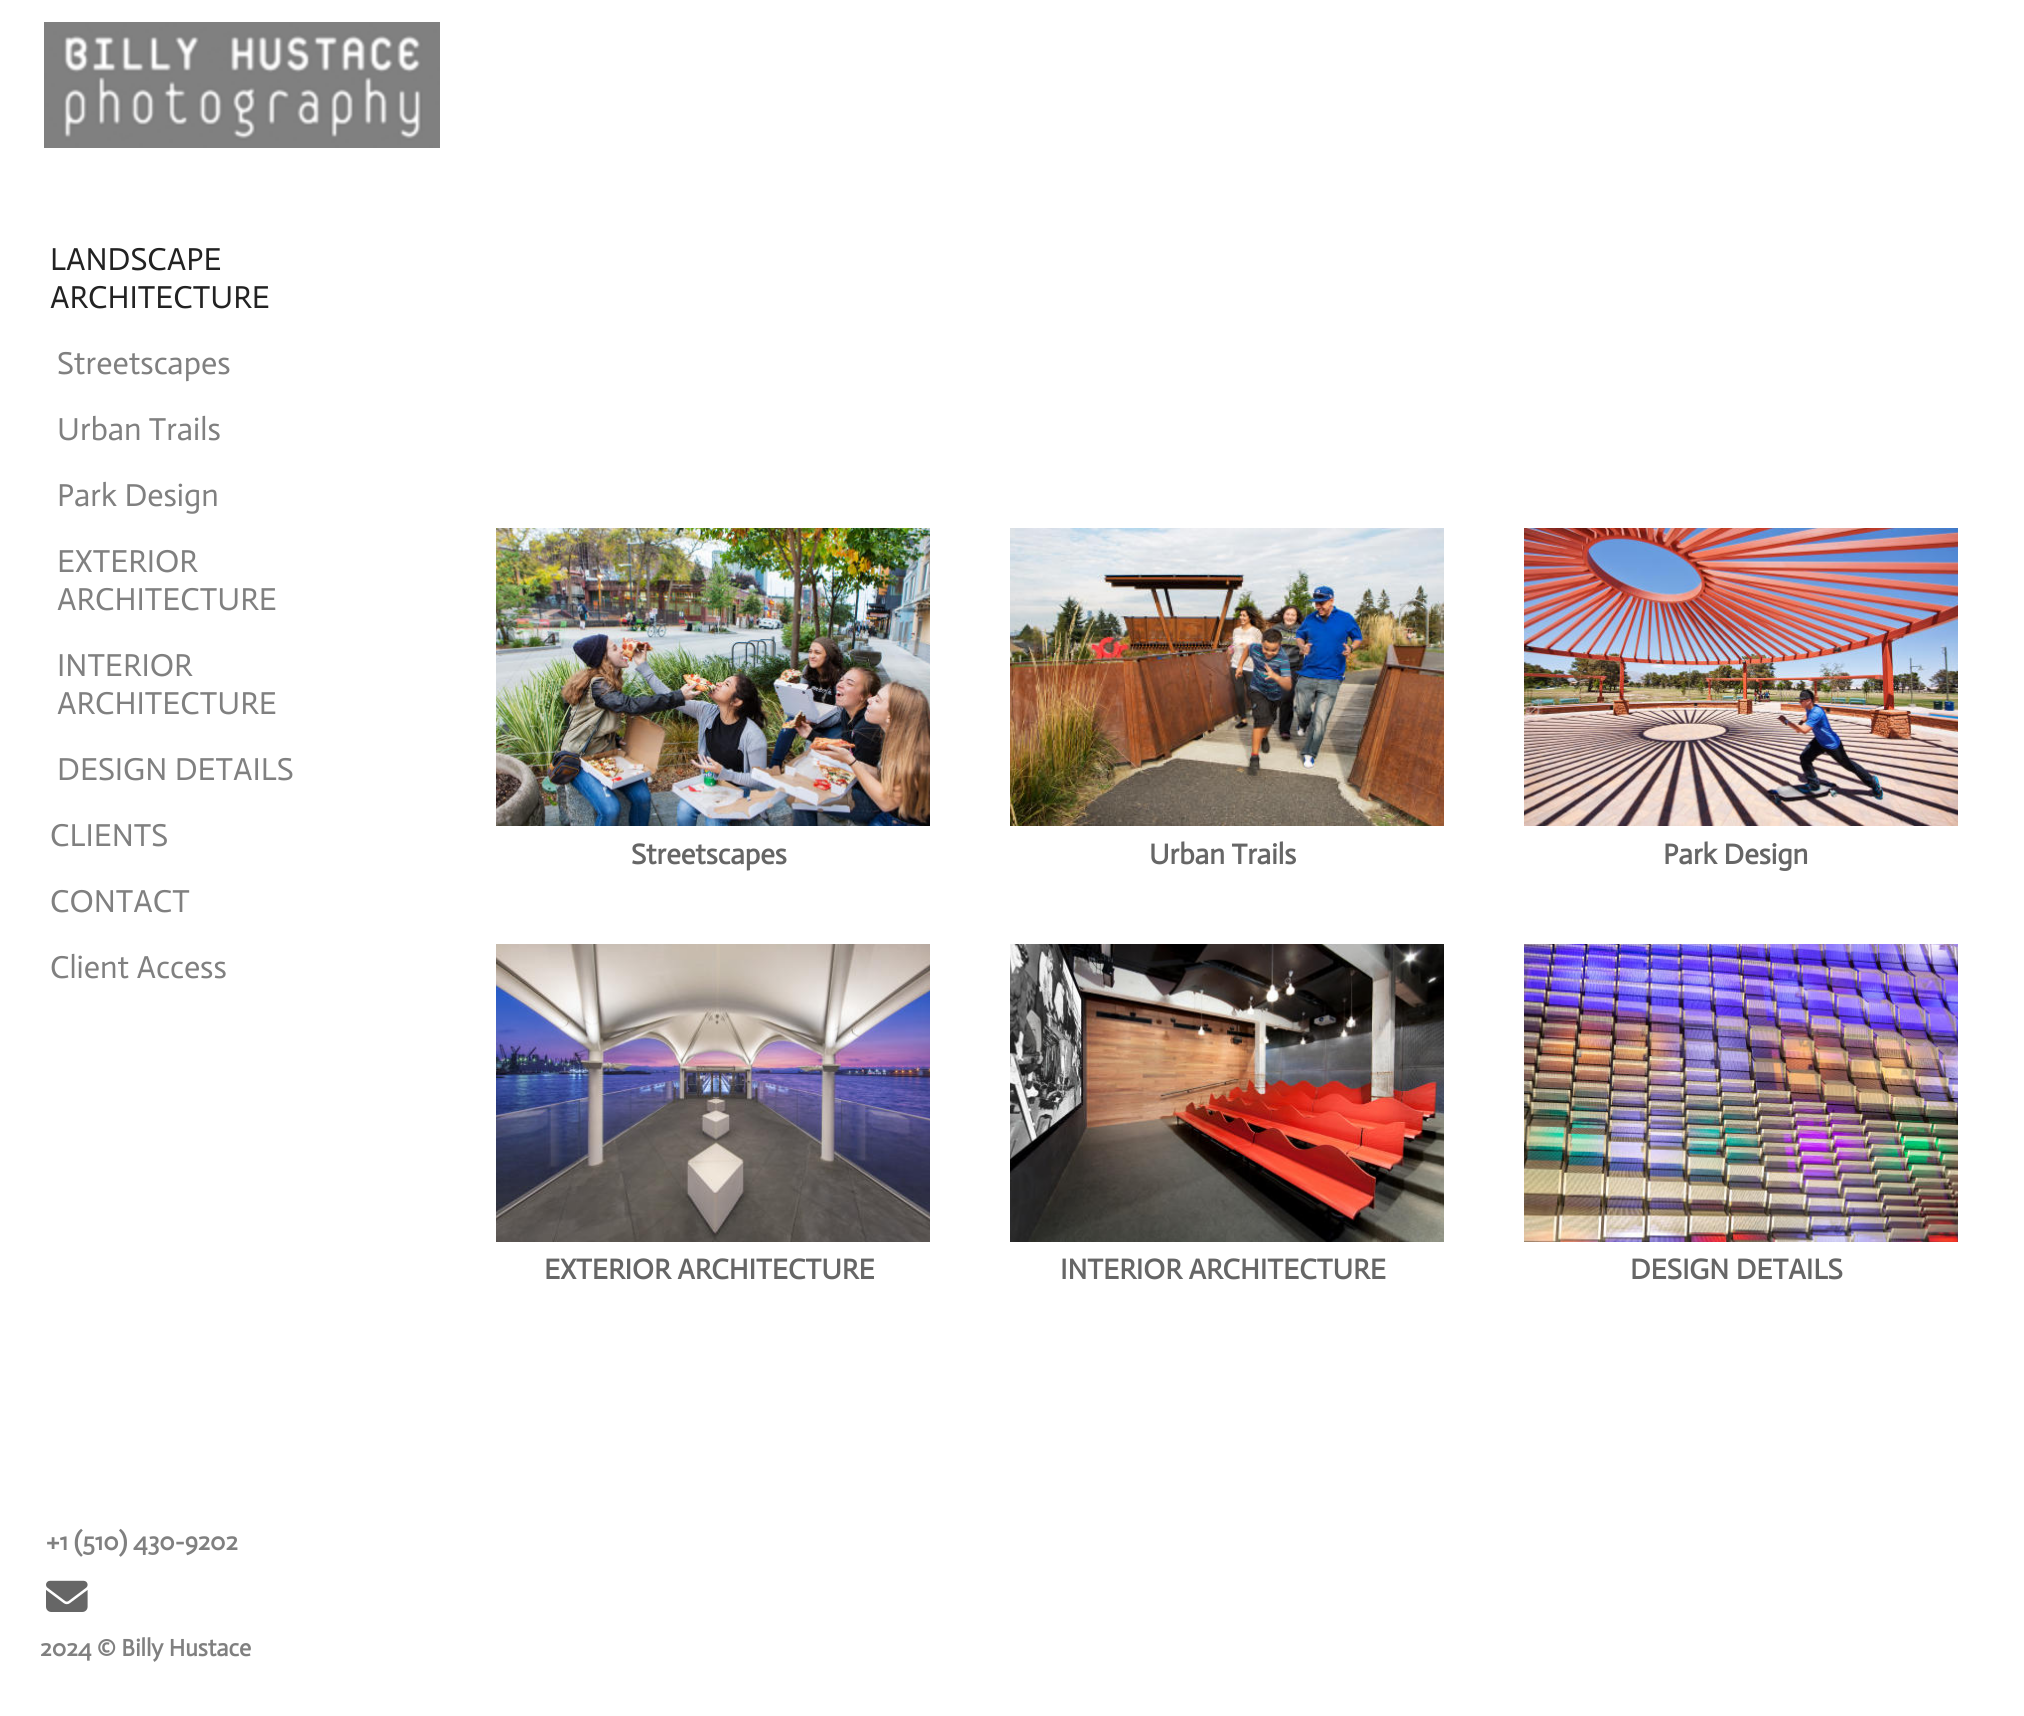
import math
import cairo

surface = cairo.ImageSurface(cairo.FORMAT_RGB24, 2024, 1716)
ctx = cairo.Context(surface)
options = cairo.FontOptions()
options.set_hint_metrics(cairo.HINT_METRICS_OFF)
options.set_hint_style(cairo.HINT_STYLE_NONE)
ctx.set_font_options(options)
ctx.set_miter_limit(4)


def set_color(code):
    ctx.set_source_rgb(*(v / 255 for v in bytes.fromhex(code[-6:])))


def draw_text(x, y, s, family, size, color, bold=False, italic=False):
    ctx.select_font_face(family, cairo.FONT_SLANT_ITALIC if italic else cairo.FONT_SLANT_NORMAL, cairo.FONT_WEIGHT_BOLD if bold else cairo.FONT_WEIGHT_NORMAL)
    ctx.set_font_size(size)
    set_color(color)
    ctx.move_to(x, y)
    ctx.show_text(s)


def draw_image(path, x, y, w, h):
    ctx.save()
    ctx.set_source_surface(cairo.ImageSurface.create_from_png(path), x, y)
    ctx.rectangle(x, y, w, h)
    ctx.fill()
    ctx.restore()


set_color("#ffffff")
ctx.paint()
draw_image("assets/img1.png", 44, 22, 396, 126)
draw_text(50, 270, "LANDSCAPE", "Actor", 32, "#222222")
draw_text(50, 308, "ARCHITECTURE", "Actor", 32, "#222222")
draw_text(57, 374, "Streetscapes", "Actor", 32, "#808080")
draw_text(57, 440, "Urban Trails", "Actor", 32, "#808080")
draw_text(57, 506, "Park Design", "Actor", 32, "#808080")
draw_text(57, 572, "EXTERIOR", "Actor", 32, "#808080")
draw_text(57, 610, "ARCHITECTURE", "Actor", 32, "#808080")
draw_text(57, 676, "INTERIOR", "Actor", 32, "#808080")
draw_text(57, 714, "ARCHITECTURE", "Actor", 32, "#808080")
draw_text(57, 780, "DESIGN DETAILS", "Actor", 32, "#808080")
draw_text(50, 846, "CLIENTS", "Actor", 32, "#808080")
draw_text(50, 912, "CONTACT", "Actor", 32, "#808080")
draw_text(50, 978, "Client Access", "Actor", 32, "#808080")
draw_text(46, 1550, "+1 (510) 430-9202", "Actor", 25.5, "#808080", bold=True)
draw_image("assets/img2.png", 46, 1580, 42, 32)
draw_text(40, 1656, "2024 © Billy Hustace", "Actor", 24, "#808080", bold=True)
draw_image("assets/img3.png", 496, 528, 434, 298)
draw_text(631, 864, "Streetscapes", "Actor", 28.75, "#666666", bold=True)
draw_image("assets/img4.png", 1010, 528, 434, 298)
draw_text(1149, 864, "Urban Trails", "Actor", 28.75, "#666666", bold=True)
draw_image("assets/img5.png", 1524, 528, 434, 298)
draw_text(1663, 864, "Park Design", "Actor", 28.75, "#666666", bold=True)
draw_image("assets/img6.png", 496, 944, 434, 298)
draw_text(544, 1279, "EXTERIOR ARCHITECTURE", "Actor", 28.75, "#666666", bold=True)
draw_image("assets/img7.png", 1010, 944, 434, 298)
draw_text(1060, 1279, "INTERIOR ARCHITECTURE", "Actor", 28.75, "#666666", bold=True)
draw_image("assets/img8.png", 1524, 944, 434, 298)
draw_text(1630, 1279, "DESIGN DETAILS", "Actor", 28.75, "#666666", bold=True)
surface.write_to_png("output.png")
